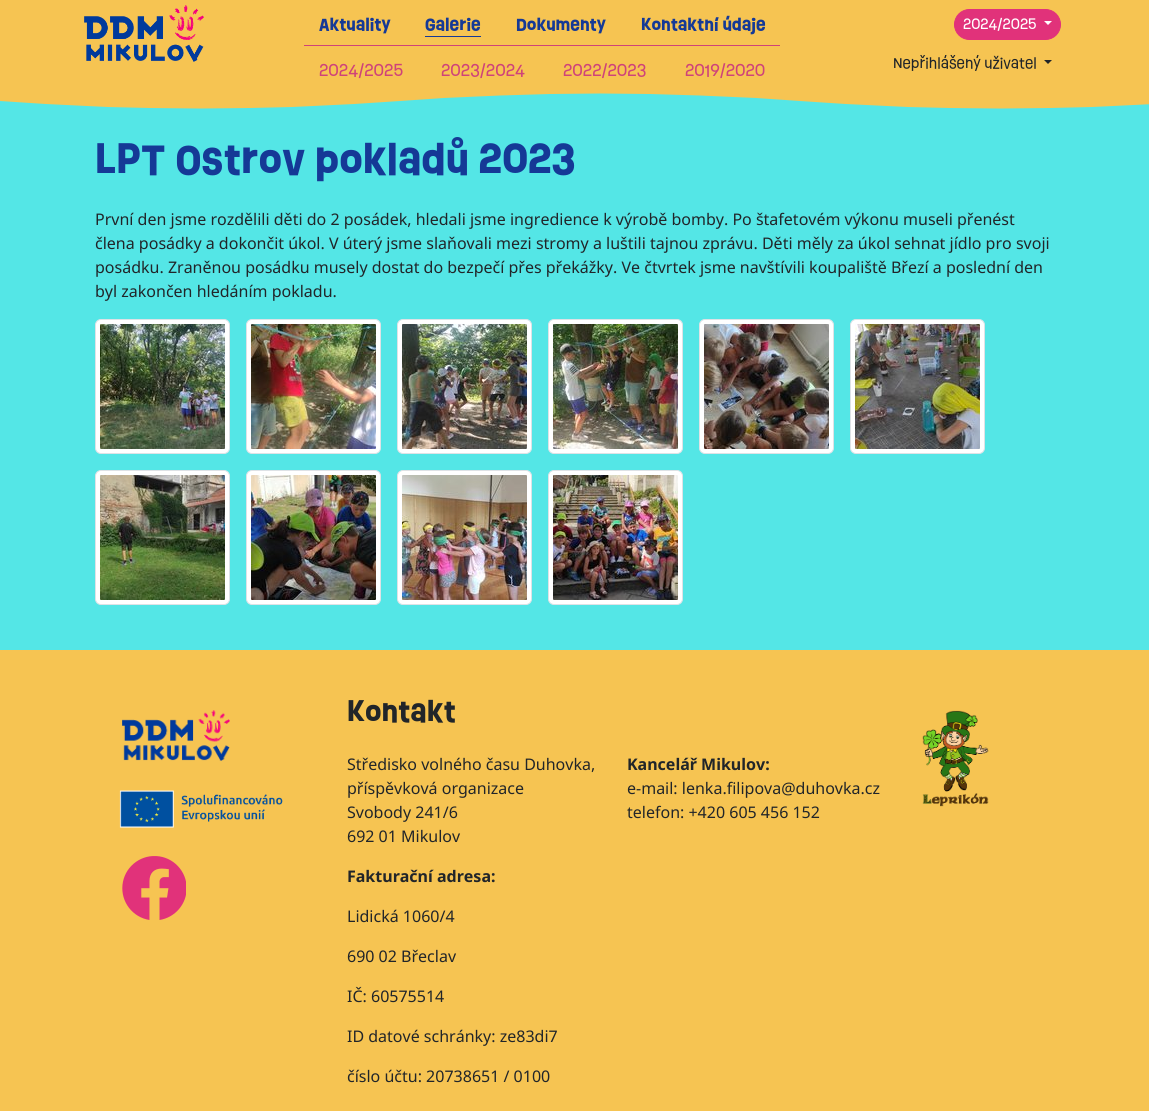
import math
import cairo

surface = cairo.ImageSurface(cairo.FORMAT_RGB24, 1149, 1111)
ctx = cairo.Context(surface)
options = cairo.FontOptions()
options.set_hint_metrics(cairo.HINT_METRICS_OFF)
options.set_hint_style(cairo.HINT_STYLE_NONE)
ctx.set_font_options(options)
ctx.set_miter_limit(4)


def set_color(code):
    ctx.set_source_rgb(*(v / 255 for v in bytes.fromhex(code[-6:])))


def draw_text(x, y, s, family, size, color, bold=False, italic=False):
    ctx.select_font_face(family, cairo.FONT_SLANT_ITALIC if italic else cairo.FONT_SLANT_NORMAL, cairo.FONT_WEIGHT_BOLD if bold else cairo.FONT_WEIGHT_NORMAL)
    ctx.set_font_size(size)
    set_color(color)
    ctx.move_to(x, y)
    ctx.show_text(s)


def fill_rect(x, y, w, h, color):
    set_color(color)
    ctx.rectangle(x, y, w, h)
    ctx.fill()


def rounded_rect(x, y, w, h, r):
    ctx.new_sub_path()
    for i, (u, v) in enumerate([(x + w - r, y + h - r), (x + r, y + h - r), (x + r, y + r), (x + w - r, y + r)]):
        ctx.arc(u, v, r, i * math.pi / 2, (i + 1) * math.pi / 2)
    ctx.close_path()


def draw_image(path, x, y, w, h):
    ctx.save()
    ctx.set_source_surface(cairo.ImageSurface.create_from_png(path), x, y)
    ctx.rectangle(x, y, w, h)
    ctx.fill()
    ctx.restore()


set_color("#f6c452")
ctx.paint()
draw_image("assets/img1.png", 84, 5, 120, 57)
draw_text(319, 30, "Aktuality", "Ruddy", 16, "#153996", bold=True)
draw_text(425, 30, "Galerie", "Ruddy", 16, "#153996", bold=True)
fill_rect(425, 36, 56, 1, "#153996")
draw_text(516, 30, "Dokumenty", "Ruddy", 16, "#153996", bold=True)
draw_text(641, 30, "Kontaktní údaje", "Ruddy", 16, "#153996", bold=True)
fill_rect(304, 45, 476, 1, "#cf4379")
draw_text(319, 76, "2024/2025", "Ruddy", 16, "#cf4379")
draw_text(441, 76, "2023/2024", "Ruddy", 16, "#cf4379")
draw_text(563, 76, "2022/2023", "Ruddy", 16, "#cf4379")
draw_text(685, 76, "2019/2020", "Ruddy", 16, "#cf4379")
set_color("#e1327a")
rounded_rect(954.5, 9.5, 106, 30, 15)
ctx.fill_preserve()
ctx.set_line_width(1)
ctx.stroke()
draw_text(963, 29, "2024/2025", "Ruddy", 14, "#ffffff")
ctx.new_path()
ctx.move_to(1044, 21)
ctx.line_to(1052, 21)
ctx.line_to(1048, 25)
ctx.close_path()
ctx.fill()
draw_text(893, 68, "Nepřihlášený uživatel", "Ruddy", 14, "#212529")
ctx.new_path()
ctx.move_to(1044, 60)
ctx.line_to(1052, 60)
ctx.line_to(1048, 64)
ctx.close_path()
ctx.fill()
fill_rect(0, 93, 1149, 557, "#54e6e6")
draw_image("assets/img2.png", 0, 91, 1149, 18)
draw_text(95, 173, "LPT Ostrov pokladů 2023", "Ruddy", 39.25, "#153996", bold=True)
draw_text(95, 225, "První den jsme rozdělili děti do 2 posádek, hledali jsme ingredience k výrobě bomby. Po štafetovém výkonu museli přenést", "Noto Sans", 16, "#212529")
draw_text(95, 249, "člena posádky a dokončit úkol. V úterý jsme slaňovali mezi stromy a luštili tajnou zprávu. Děti měly za úkol sehnat jídlo pro svoji", "Noto Sans", 16, "#212529")
draw_text(95, 273, "posádku. Zraněnou posádku musely dostat do bezpečí přes překážky. Ve čtvrtek jsme navštívili koupaliště Březí a poslední den", "Noto Sans", 16, "#212529")
draw_text(95, 297, "byl zakončen hledáním pokladu.", "Noto Sans", 16, "#212529")
set_color("#ffffff")
rounded_rect(95.5, 319.5, 134, 134, 5.5)
ctx.fill_preserve()
set_color("#dee2e6")
ctx.stroke()
draw_image("assets/img3.png", 100, 324, 125, 125)
set_color("#ffffff")
rounded_rect(246.5, 319.5, 134, 134, 5.5)
ctx.fill_preserve()
set_color("#dee2e6")
ctx.stroke()
draw_image("assets/img4.png", 251, 324, 125, 125)
set_color("#ffffff")
rounded_rect(397.5, 319.5, 134, 134, 5.5)
ctx.fill_preserve()
set_color("#dee2e6")
ctx.stroke()
draw_image("assets/img5.png", 402, 324, 125, 125)
set_color("#ffffff")
rounded_rect(548.5, 319.5, 134, 134, 5.5)
ctx.fill_preserve()
set_color("#dee2e6")
ctx.stroke()
draw_image("assets/img6.png", 553, 324, 125, 125)
set_color("#ffffff")
rounded_rect(699.5, 319.5, 134, 134, 5.5)
ctx.fill_preserve()
set_color("#dee2e6")
ctx.stroke()
draw_image("assets/img7.png", 704, 324, 125, 125)
set_color("#ffffff")
rounded_rect(850.5, 319.5, 134, 134, 5.5)
ctx.fill_preserve()
set_color("#dee2e6")
ctx.stroke()
draw_image("assets/img8.png", 855, 324, 125, 125)
set_color("#ffffff")
rounded_rect(95.5, 470.5, 134, 134, 5.5)
ctx.fill_preserve()
set_color("#dee2e6")
ctx.stroke()
draw_image("assets/img9.png", 100, 475, 125, 125)
set_color("#ffffff")
rounded_rect(246.5, 470.5, 134, 134, 5.5)
ctx.fill_preserve()
set_color("#dee2e6")
ctx.stroke()
draw_image("assets/img10.png", 251, 475, 125, 125)
set_color("#ffffff")
rounded_rect(397.5, 470.5, 134, 134, 5.5)
ctx.fill_preserve()
set_color("#dee2e6")
ctx.stroke()
draw_image("assets/img11.png", 402, 475, 125, 125)
set_color("#ffffff")
rounded_rect(548.5, 470.5, 134, 134, 5.5)
ctx.fill_preserve()
set_color("#dee2e6")
ctx.stroke()
draw_image("assets/img12.png", 553, 475, 125, 125)
draw_image("assets/img13.png", 122, 710, 108, 51)
draw_image("assets/img14.png", 119, 790, 164, 38)
draw_image("assets/img15.png", 122, 856, 64, 64)
draw_text(347, 721, "Kontakt", "Ruddy", 27.5, "#212529", bold=True)
draw_text(347, 770, "Středisko volného času Duhovka,", "Noto Sans", 16, "#212529")
draw_text(347, 794, "příspěvková organizace", "Noto Sans", 16, "#212529")
draw_text(347, 818, "Svobody 241/6", "Noto Sans", 16, "#212529")
draw_text(347, 842, "692 01 Mikulov", "Noto Sans", 16, "#212529")
draw_text(347, 882, "Fakturační adresa:", "Noto Sans", 16, "#212529", bold=True)
draw_text(347, 922, "Lidická 1060/4", "Noto Sans", 16, "#212529")
draw_text(347, 962, "690 02 Břeclav", "Noto Sans", 16, "#212529")
draw_text(347, 1002, "IČ: 60575514", "Noto Sans", 16, "#212529")
draw_text(347, 1042, "ID datové schránky: ze83di7", "Noto Sans", 16, "#212529")
draw_text(347, 1082, "číslo účtu: 20738651 / 0100", "Noto Sans", 16, "#212529")
draw_text(627, 770, "Kancelář Mikulov:", "Noto Sans", 16, "#212529", bold=True)
draw_text(627, 794, "e-mail: lenka.filipova@duhovka.cz", "Noto Sans", 16, "#212529")
draw_text(627, 818, "telefon: +420 605 456 152", "Noto Sans", 16, "#212529")
draw_image("assets/img16.png", 922, 710, 67, 97)
surface.write_to_png("output.png")
